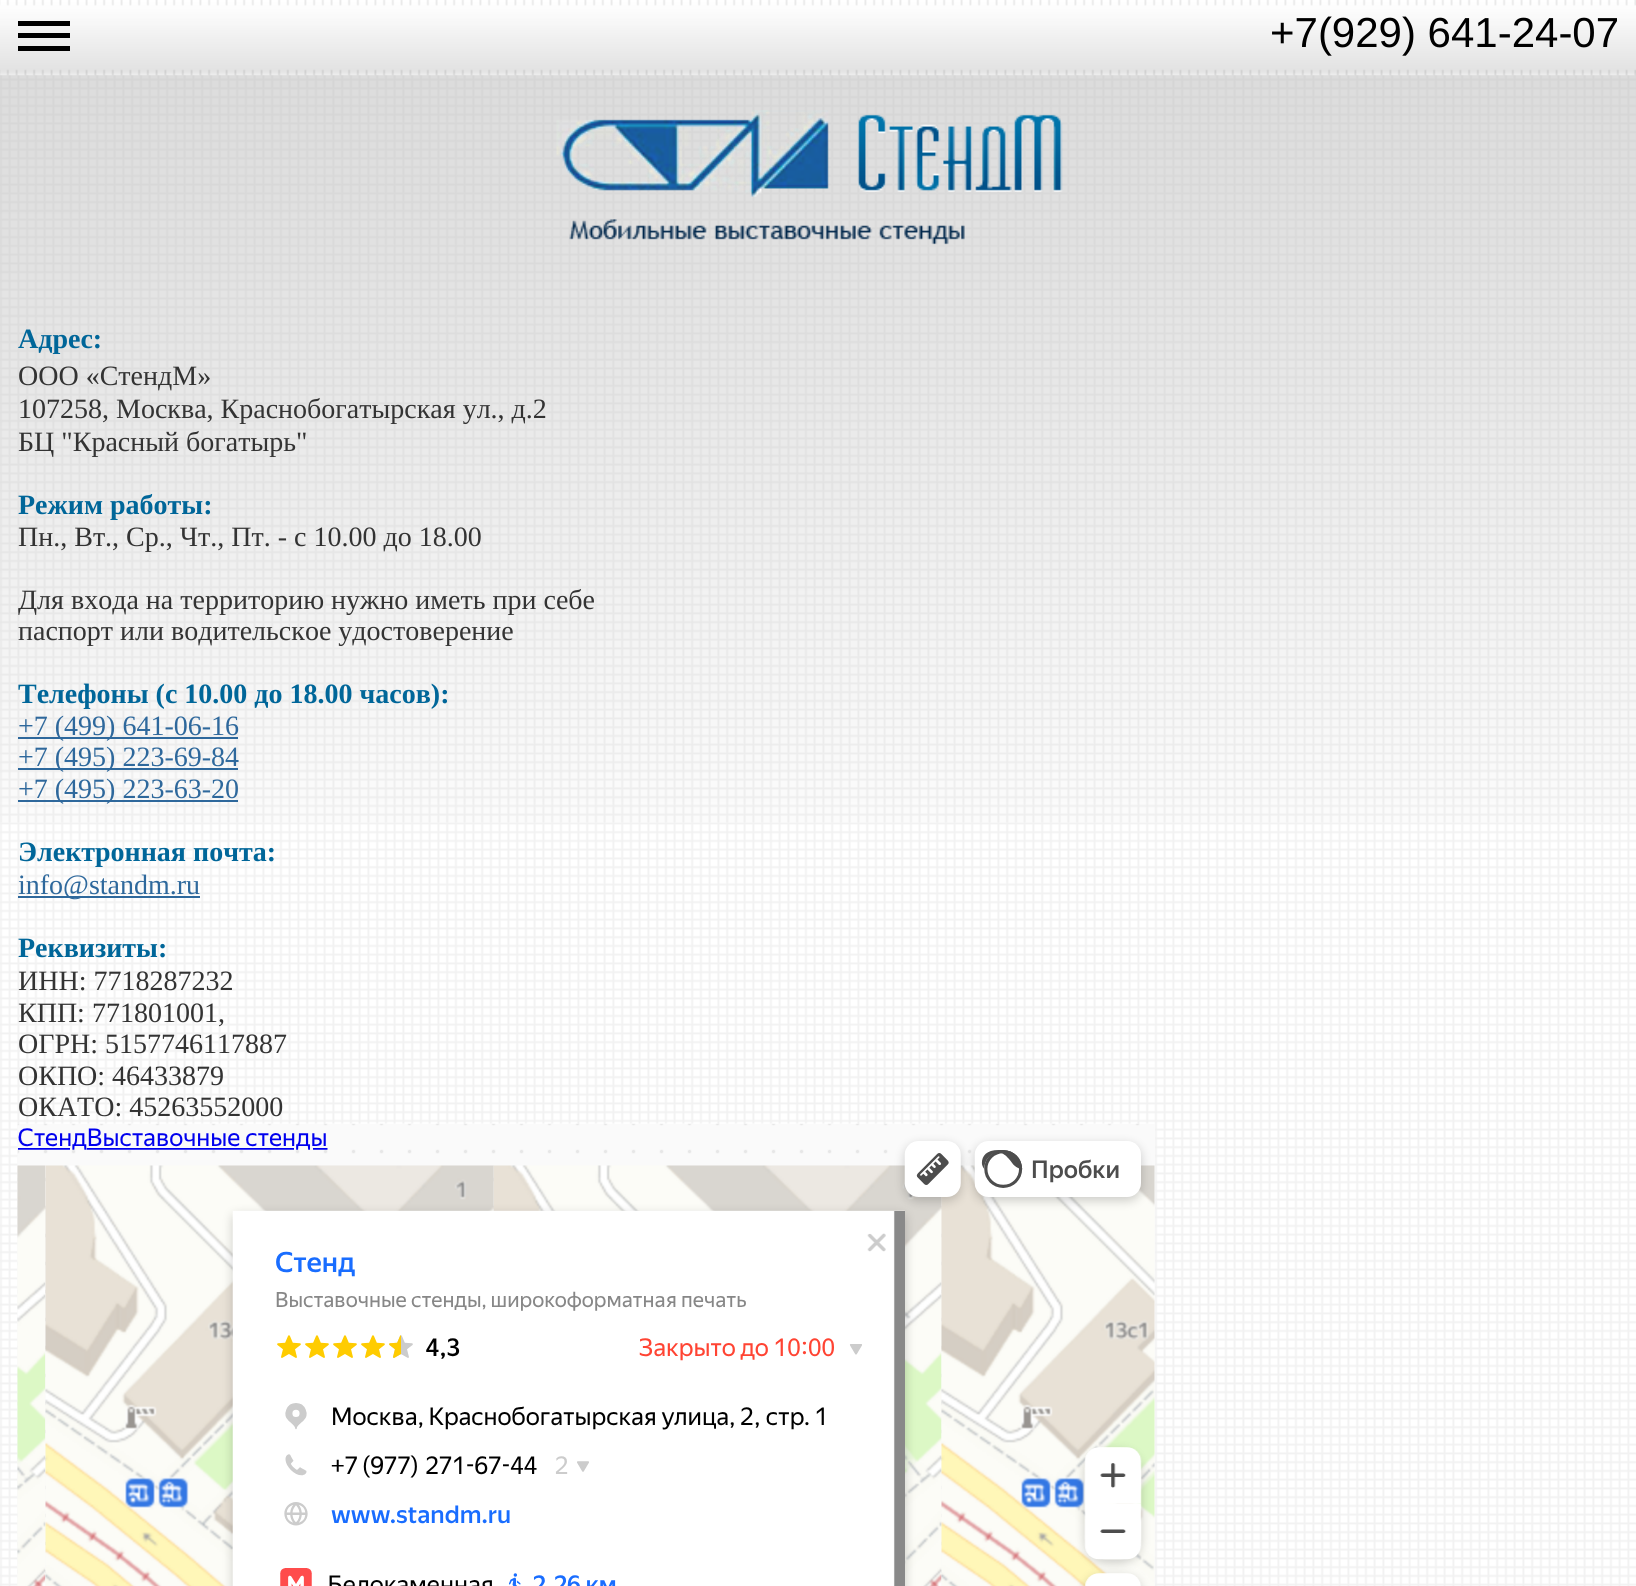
import math
import cairo

surface = cairo.ImageSurface(cairo.FORMAT_RGB24, 1636, 1586)
ctx = cairo.Context(surface)
options = cairo.FontOptions()
options.set_hint_metrics(cairo.HINT_METRICS_OFF)
options.set_hint_style(cairo.HINT_STYLE_NONE)
ctx.set_font_options(options)
ctx.set_miter_limit(4)


def set_color(code):
    ctx.set_source_rgb(*(v / 255 for v in bytes.fromhex(code[-6:])))


def draw_text(x, y, s, family, size, color, bold=False, italic=False):
    ctx.select_font_face(family, cairo.FONT_SLANT_ITALIC if italic else cairo.FONT_SLANT_NORMAL, cairo.FONT_WEIGHT_BOLD if bold else cairo.FONT_WEIGHT_NORMAL)
    ctx.set_font_size(size)
    set_color(color)
    ctx.move_to(x, y)
    ctx.show_text(s)


def fill_rect(x, y, w, h, color):
    set_color(color)
    ctx.rectangle(x, y, w, h)
    ctx.fill()


def draw_image(path, x, y, w, h):
    ctx.save()
    ctx.set_source_surface(cairo.ImageSurface.create_from_png(path), x, y)
    ctx.rectangle(x, y, w, h)
    ctx.fill()
    ctx.restore()


set_color("#ffffff")
ctx.paint()
draw_image("assets/img1.png", 0, 75, 1636, 1511)
draw_image("assets/img2.png", 0, 75, 1636, 747)
draw_image("assets/img3.png", 0, 0, 1636, 76)
fill_rect(18, 21, 52, 5, "#000000")
fill_rect(18, 33, 52, 5, "#000000")
fill_rect(18, 46, 52, 5, "#000000")
draw_text(1270, 47, "+7(929) 641-24-07", "Liberation Sans", 42, "#000000")
draw_image("assets/img4.png", 556, 110, 507, 135)
draw_text(18, 348, "Адрес:", "Liberation Serif", 28, "#006699", bold=True)
draw_text(18, 385, "ООО «СтендМ»", "Liberation Serif", 28, "#333333")
draw_text(18, 418, "107258, Москва, Краснобогатырская ул., д.2", "Liberation Serif", 28, "#333333")
draw_text(18, 451, "БЦ \"Красный богатырь\"", "Liberation Serif", 28, "#333333")
draw_text(18, 514, "Режим работы:", "Liberation Serif", 28, "#006699", bold=True)
draw_text(18, 546, "Пн., Вт., Ср., Чт., Пт. - с 10.00 до 18.00", "Liberation Serif", 28, "#333333")
draw_text(18, 609, "Для входа на территорию нужно иметь при себе", "Liberation Serif", 28, "#333333")
draw_text(18, 640, "паспорт или водительское удостоверение", "Liberation Serif", 28, "#333333")
draw_text(18, 703, "Телефоны (с 10.00 до 18.00 часов):", "Liberation Serif", 28, "#006699", bold=True)
fill_rect(18, 737, 220, 2, "#2e689c")
draw_text(18, 735, "+7 (499) 641-06-16", "Liberation Serif", 28, "#2e689c")
fill_rect(18, 768, 220, 2, "#2e689c")
draw_text(18, 766, "+7 (495) 223-69-84", "Liberation Serif", 28, "#2e689c")
fill_rect(18, 800, 220, 2, "#2e689c")
draw_text(18, 798, "+7 (495) 223-63-20", "Liberation Serif", 28, "#2e689c")
draw_text(18, 861, "Электронная почта:", "Liberation Serif", 28, "#006699", bold=True)
fill_rect(18, 896, 182, 2, "#2e689c")
draw_text(18, 894, "info@standm.ru", "Liberation Serif", 28, "#2e689c")
draw_text(18, 957, "Реквизиты:", "Liberation Serif", 28, "#006699", bold=True)
draw_text(18, 990, "ИНН: 7718287232", "Liberation Serif", 28, "#333333")
draw_text(18, 1022, "КПП: 771801001,", "Liberation Serif", 28, "#333333")
draw_text(18, 1053, "ОГРН: 5157746117887", "Liberation Serif", 28, "#333333")
draw_text(18, 1085, "ОКПО: 46433879", "Liberation Serif", 28, "#333333")
draw_text(18, 1116, "ОКАТО: 45263552000", "Liberation Serif", 28, "#333333")
draw_image("assets/img5.png", 17, 1123, 1138, 463)
surface.write_to_png("output.png")
